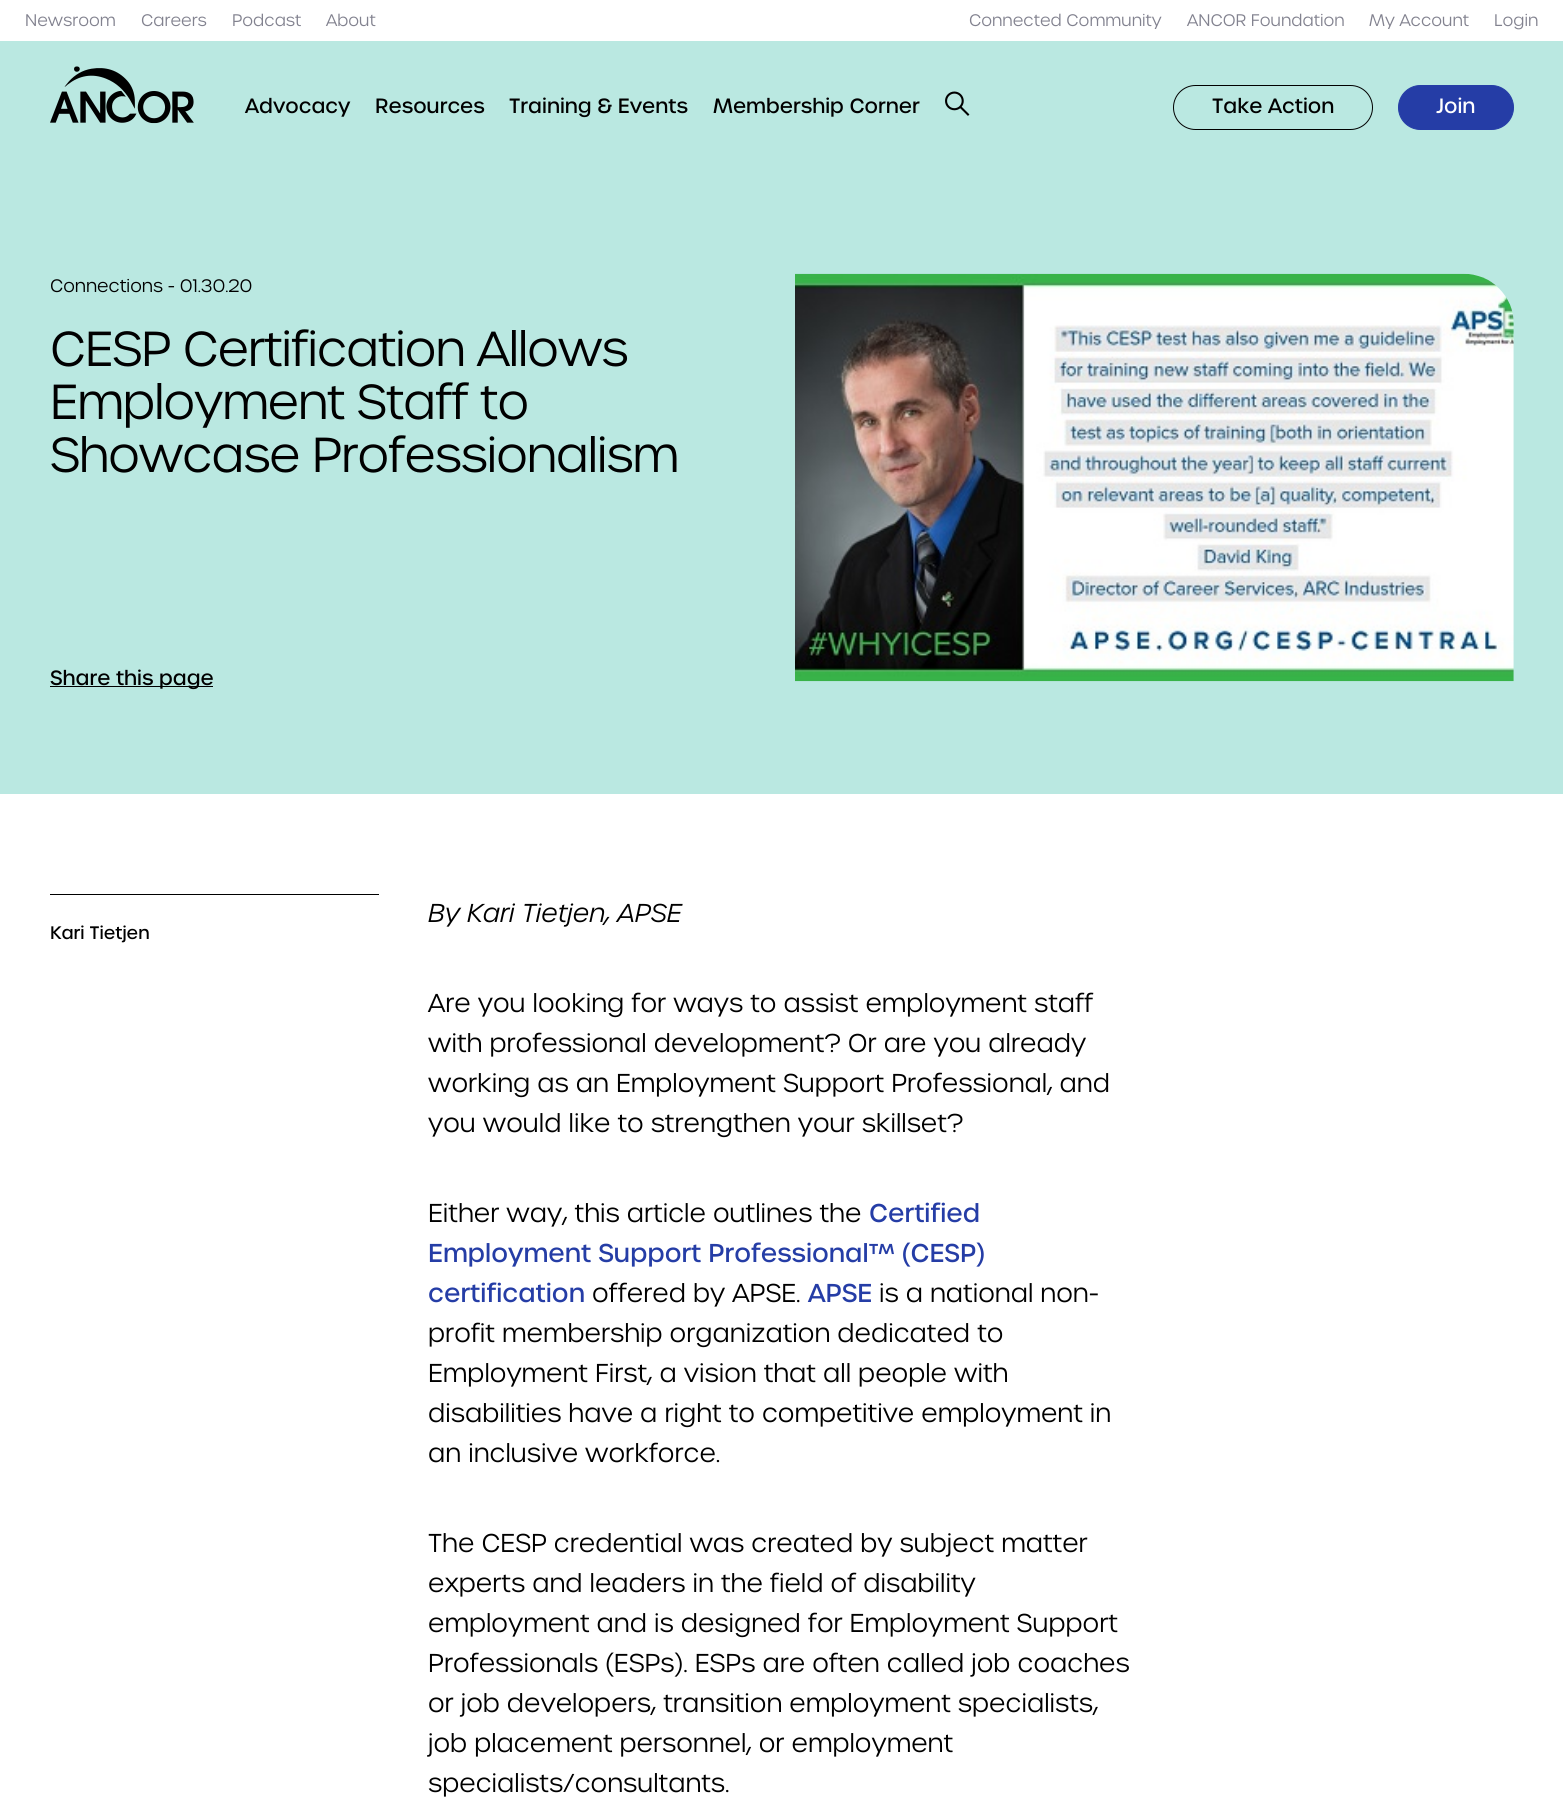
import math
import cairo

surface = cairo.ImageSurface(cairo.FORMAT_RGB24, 1563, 1807)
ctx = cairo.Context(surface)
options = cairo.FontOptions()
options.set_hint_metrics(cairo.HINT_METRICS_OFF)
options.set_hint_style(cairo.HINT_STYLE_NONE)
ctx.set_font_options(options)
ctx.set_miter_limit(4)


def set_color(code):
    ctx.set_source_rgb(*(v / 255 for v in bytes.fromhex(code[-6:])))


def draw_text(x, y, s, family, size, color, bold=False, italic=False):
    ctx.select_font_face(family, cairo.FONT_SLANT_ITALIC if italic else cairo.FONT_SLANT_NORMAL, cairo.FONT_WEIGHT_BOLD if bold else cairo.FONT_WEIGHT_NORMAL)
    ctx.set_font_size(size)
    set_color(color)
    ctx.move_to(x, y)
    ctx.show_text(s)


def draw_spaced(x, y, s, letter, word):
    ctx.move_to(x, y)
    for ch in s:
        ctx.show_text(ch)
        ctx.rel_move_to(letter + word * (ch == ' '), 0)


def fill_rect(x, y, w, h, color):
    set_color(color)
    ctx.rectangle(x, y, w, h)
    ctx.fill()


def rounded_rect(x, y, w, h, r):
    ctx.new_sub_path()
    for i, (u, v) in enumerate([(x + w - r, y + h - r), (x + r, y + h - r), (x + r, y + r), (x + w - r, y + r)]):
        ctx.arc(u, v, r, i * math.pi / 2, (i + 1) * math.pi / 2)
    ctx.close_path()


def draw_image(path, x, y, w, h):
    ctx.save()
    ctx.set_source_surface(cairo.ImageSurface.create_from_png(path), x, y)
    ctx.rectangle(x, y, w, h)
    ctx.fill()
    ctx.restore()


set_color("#ffffff")
ctx.paint()
draw_text(25, 26, "Newsroom", "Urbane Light", 16.25, "#82828f")
draw_text(141, 26, "Careers", "Urbane Light", 16.25, "#82828f")
draw_text(232, 26, "Podcast", "Urbane Light", 16.25, "#82828f")
draw_text(326, 26, "About", "Urbane Light", 16.25, "#82828f")
draw_text(969, 26, "Connected Community", "Urbane Light", 16.25, "#82828f")
draw_text(1187, 26, "ANCOR Foundation", "Urbane Light", 16.25, "#82828f")
draw_text(1369, 26, "My Account", "Urbane Light", 16.25, "#82828f")
draw_text(1494, 26, "Login", "Urbane Light", 16.25, "#82828f")
fill_rect(0, 41, 1563, 753, "#bae8e1")
draw_image("assets/img1.png", 50, 66, 144, 58)
draw_text(245, 113, "Advocacy", "Urbane Medium", 20, "#000000")
draw_text(375, 113, "Resources", "Urbane Medium", 20, "#000000")
draw_text(509, 113, "Training & Events", "Urbane Medium", 20, "#000000")
draw_text(713, 113, "Membership Corner", "Urbane Medium", 20, "#000000")
draw_image("assets/img2.png", 945, 91, 25, 25)
rounded_rect(1173.5, 85.5, 199, 44, 22)
ctx.set_line_width(1)
ctx.stroke()
draw_text(1212, 113, "Take Action", "Urbane Medium", 20, "#000000")
set_color("#253da6")
rounded_rect(1398.5, 85.5, 115, 44, 22)
ctx.fill_preserve()
ctx.stroke()
draw_text(1436, 113, "Join", "Urbane Medium", 20, "#ffffff")
draw_text(50, 292, "Connections - 01.30.20", "Urbane Light", 17.5, "#000000")
ctx.set_font_size(47.5)
draw_spaced(50, 366, "CESP Certification Allows", -0.95, 0)
draw_spaced(50, 419, "Employment Staff to", -0.95, 0)
draw_spaced(50, 472, "Showcase Professionalism", -0.95, 0)
fill_rect(50, 686, 163, 1, "#000000")
draw_text(50, 685, "Share this page", "Urbane Medium", 20, "#000000")
draw_image("assets/img3.png", 795, 273, 719, 409)
fill_rect(50, 894, 329, 1, "#000000")
draw_text(50, 939, "Kari Tietjen", "Urbane Medium", 17.5, "#000000")
draw_text(428, 922, "By Kari Tietjen, APSE", "Urbane Light", 25, "#000000", italic=True)
draw_text(428, 1012, "Are you looking for ways to assist employment staff", "Urbane Light", 25, "#000000")
draw_text(428, 1052, "with professional development? Or are you already", "Urbane Light", 25, "#000000")
draw_text(428, 1092, "working as an Employment Support Professional, and", "Urbane Light", 25, "#000000")
draw_text(428, 1132, "you would like to strengthen your skillset?", "Urbane Light", 25, "#000000")
draw_text(428, 1222, "Either way, this article outlines the", "Urbane Light", 25, "#000000")
draw_text(869, 1222, "Certified", "Urbane Medium", 25, "#253da6")
draw_text(428, 1262, "Employment Support Professional™ (CESP)", "Urbane Medium", 25, "#253da6")
draw_text(428, 1302, "certification", "Urbane Medium", 25, "#253da6")
draw_text(592, 1302, "offered by APSE.", "Urbane Light", 25, "#000000")
draw_text(808, 1302, "APSE", "Urbane Medium", 25, "#253da6")
draw_text(879, 1302, "is a national non-", "Urbane Light", 25, "#000000")
draw_text(428, 1342, "profit membership organization dedicated to", "Urbane Light", 25, "#000000")
draw_text(428, 1382, "Employment First, a vision that all people with", "Urbane Light", 25, "#000000")
draw_text(428, 1422, "disabilities have a right to competitive employment in", "Urbane Light", 25, "#000000")
draw_text(428, 1462, "an inclusive workforce.", "Urbane Light", 25, "#000000")
draw_text(428, 1552, "The CESP credential was created by subject matter", "Urbane Light", 25, "#000000")
draw_text(428, 1592, "experts and leaders in the field of disability", "Urbane Light", 25, "#000000")
draw_text(428, 1632, "employment and is designed for Employment Support", "Urbane Light", 25, "#000000")
draw_text(428, 1672, "Professionals (ESPs). ESPs are often called job coaches", "Urbane Light", 25, "#000000")
draw_text(428, 1712, "or job developers, transition employment specialists,", "Urbane Light", 25, "#000000")
draw_text(428, 1752, "job placement personnel, or employment", "Urbane Light", 25, "#000000")
draw_text(428, 1792, "specialists/consultants.", "Urbane Light", 25, "#000000")
surface.write_to_png("output.png")
